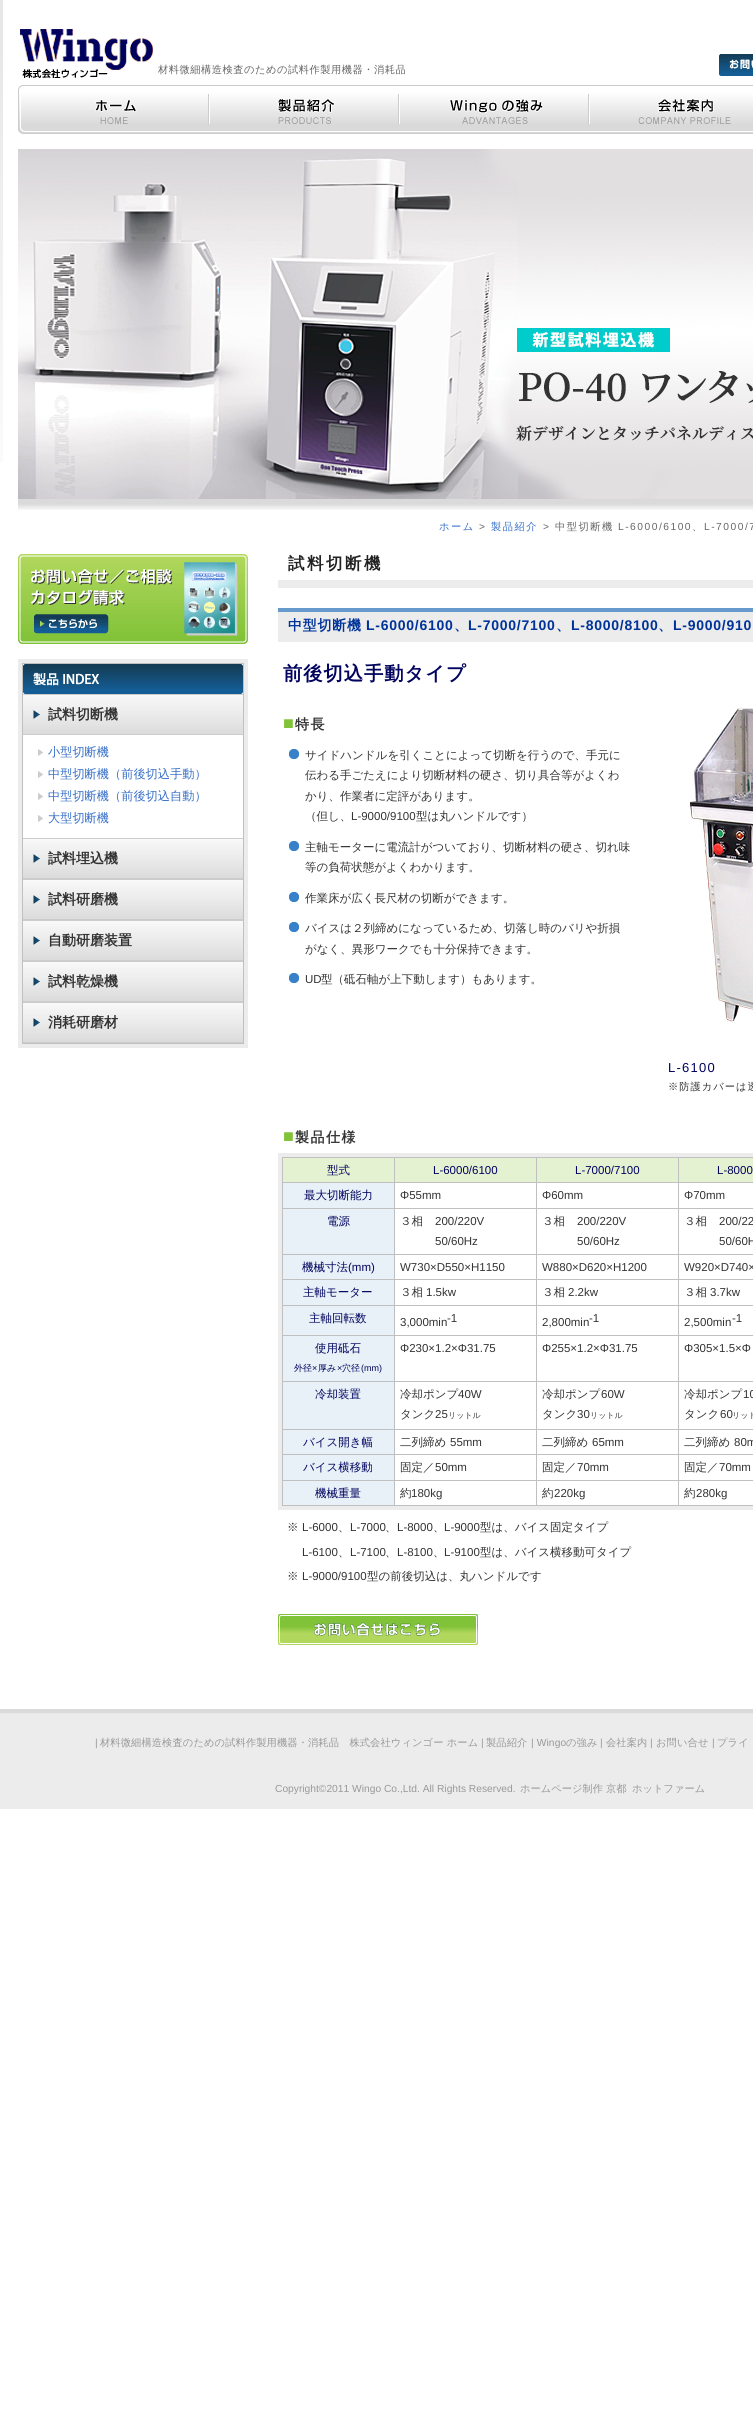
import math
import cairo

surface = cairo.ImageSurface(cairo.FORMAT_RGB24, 753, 2423)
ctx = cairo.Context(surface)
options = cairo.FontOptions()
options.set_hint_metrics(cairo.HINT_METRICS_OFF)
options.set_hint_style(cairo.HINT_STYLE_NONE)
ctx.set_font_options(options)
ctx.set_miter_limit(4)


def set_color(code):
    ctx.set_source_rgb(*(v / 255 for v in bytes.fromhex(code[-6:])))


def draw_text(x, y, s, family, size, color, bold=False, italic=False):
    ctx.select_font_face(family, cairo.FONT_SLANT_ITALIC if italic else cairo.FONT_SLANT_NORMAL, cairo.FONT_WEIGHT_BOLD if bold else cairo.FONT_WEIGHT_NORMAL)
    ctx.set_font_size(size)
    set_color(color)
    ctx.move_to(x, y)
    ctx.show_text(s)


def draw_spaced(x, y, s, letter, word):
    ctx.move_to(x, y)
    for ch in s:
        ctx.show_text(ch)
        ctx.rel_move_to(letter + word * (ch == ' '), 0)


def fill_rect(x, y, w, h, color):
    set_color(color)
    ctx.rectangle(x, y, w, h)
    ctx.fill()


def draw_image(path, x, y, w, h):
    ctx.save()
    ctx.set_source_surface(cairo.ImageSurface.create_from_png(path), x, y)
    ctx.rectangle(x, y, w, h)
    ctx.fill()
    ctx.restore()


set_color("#ffffff")
ctx.paint()
draw_image("assets/img1.png", 0, 0, 3, 462)
draw_image("assets/img2.png", 20, 29, 733, 49)
ctx.select_font_face("WenQuanYi Zen Hei Medium")
ctx.set_font_size(10.25)
set_color("#666666")
draw_spaced(158, 73, "材料微細構造検査のための試料作製用機器・消耗品", 0.5, 0)
draw_image("assets/img3.png", 18, 85, 190, 49)
draw_image("assets/img4.png", 208, 85, 190, 49)
draw_image("assets/img5.png", 398, 85, 190, 49)
draw_image("assets/img6.png", 588, 85, 165, 49)
draw_image("assets/img7.png", 18, 149, 735, 350)
draw_image("assets/img8.png", 18, 499, 735, 11)
set_color("#376fc8")
draw_spaced(439, 530, "ホーム", 1.5, 0)
ctx.select_font_face("Liberation Sans")
set_color("#666666")
draw_spaced(479, 530, ">", 1.5, 0)
ctx.select_font_face("WenQuanYi Zen Hei Medium")
set_color("#376fc8")
draw_spaced(491, 530, "製品紹介", 1.5, 0)
ctx.select_font_face("Liberation Sans")
set_color("#666666")
draw_spaced(543, 530, ">", 1.5, 0)
ctx.select_font_face("WenQuanYi Zen Hei Medium")
draw_spaced(555, 530, "中型切断機", 1.5, 0)
ctx.select_font_face("Liberation Sans")
draw_spaced(618, 530, "L-6000/6100", 1.5, 0)
draw_spaced(704, 530, "L-7000/7", 1.5, 0)
ctx.select_font_face("WenQuanYi Zen Hei Medium")
draw_spaced(692, 530, "、", 1.5, 0)
draw_image("assets/img9.png", 18, 554, 230, 90)
fill_rect(18, 659, 230, 389, "#ececec")
fill_rect(23, 735, 220, 103, "#ffffff")
ctx.rectangle(22.5, 663.5, 221, 380)
set_color("#c0c0c0")
ctx.set_line_width(1)
ctx.stroke()
draw_image("assets/img10.png", 23, 664, 220, 30)
draw_image("assets/img11.png", 23, 694, 220, 41)
draw_text(48, 719, "試料切断機", "WenQuanYi Zen Hei", 14, "#333333", bold=True)
draw_image("assets/img12.png", 38, 749, 5, 7)
draw_text(48, 756, "小型切断機", "WenQuanYi Zen Hei Medium", 12.2, "#376fc8")
draw_image("assets/img12.png", 38, 771, 5, 7)
draw_text(48, 778, "中型切断機（前後切込手動）", "WenQuanYi Zen Hei Medium", 12.2, "#376fc8")
draw_image("assets/img12.png", 38, 793, 5, 7)
draw_text(48, 800, "中型切断機（前後切込自動）", "WenQuanYi Zen Hei Medium", 12.2, "#376fc8")
draw_image("assets/img12.png", 38, 815, 5, 7)
draw_text(48, 822, "大型切断機", "WenQuanYi Zen Hei Medium", 12.2, "#376fc8")
draw_image("assets/img11.png", 23, 838, 220, 41)
draw_text(48, 863, "試料埋込機", "WenQuanYi Zen Hei", 14, "#333333", bold=True)
draw_image("assets/img11.png", 23, 879, 220, 41)
draw_text(48, 904, "試料研磨機", "WenQuanYi Zen Hei", 14, "#333333", bold=True)
draw_image("assets/img11.png", 23, 920, 220, 41)
draw_text(48, 945, "自動研磨装置", "WenQuanYi Zen Hei", 14, "#333333", bold=True)
draw_image("assets/img11.png", 23, 961, 220, 41)
draw_text(48, 986, "試料乾燥機", "WenQuanYi Zen Hei", 14, "#333333", bold=True)
draw_image("assets/img11.png", 23, 1002, 220, 41)
draw_text(48, 1027, "消耗研磨材", "WenQuanYi Zen Hei", 14, "#333333", bold=True)
fill_rect(278, 580, 475, 8, "#ececec")
ctx.set_font_size(16.5)
set_color("#222222")
draw_spaced(288, 569, "試料切断機", 2.5, 0)
draw_image("assets/img13.png", 278, 608, 475, 34)
ctx.set_font_size(14)
set_color("#003399")
draw_spaced(288, 630, "中型切断機", 0.75, 0)
ctx.select_font_face("Liberation Sans", cairo.FONT_SLANT_NORMAL, cairo.FONT_WEIGHT_BOLD)
draw_spaced(366, 630, "L-6000/6100", 0.75, 0)
ctx.select_font_face("WenQuanYi Zen Hei", cairo.FONT_SLANT_NORMAL, cairo.FONT_WEIGHT_BOLD)
draw_spaced(454, 630, "、", 0.75, 0)
ctx.select_font_face("Liberation Sans", cairo.FONT_SLANT_NORMAL, cairo.FONT_WEIGHT_BOLD)
draw_spaced(468, 630, "L-7000/7100", 0.75, 0)
ctx.select_font_face("WenQuanYi Zen Hei", cairo.FONT_SLANT_NORMAL, cairo.FONT_WEIGHT_BOLD)
draw_spaced(556, 630, "、", 0.75, 0)
ctx.select_font_face("Liberation Sans", cairo.FONT_SLANT_NORMAL, cairo.FONT_WEIGHT_BOLD)
draw_spaced(571, 630, "L-8000/8100", 0.75, 0)
ctx.select_font_face("WenQuanYi Zen Hei", cairo.FONT_SLANT_NORMAL, cairo.FONT_WEIGHT_BOLD)
draw_spaced(658, 630, "、", 0.75, 0)
ctx.select_font_face("Liberation Sans", cairo.FONT_SLANT_NORMAL, cairo.FONT_WEIGHT_BOLD)
draw_spaced(673, 630, "L-9000/910", 0.75, 0)
ctx.select_font_face("WenQuanYi Zen Hei", cairo.FONT_SLANT_NORMAL, cairo.FONT_WEIGHT_BOLD)
ctx.set_font_size(19.25)
set_color("#01035e")
draw_spaced(283, 680, "前後切込手動タイプ", 1, 0)
ctx.select_font_face("Liberation Sans")
ctx.set_font_size(18)
set_color("#80c238")
draw_spaced(283, 729, "■", 1.5, 0)
ctx.select_font_face("WenQuanYi Zen Hei", cairo.FONT_SLANT_NORMAL, cairo.FONT_WEIGHT_BOLD)
ctx.set_font_size(14)
set_color("#333333")
draw_spaced(295, 729, "特長", 1.5, 0)
draw_image("assets/img14.png", 289, 749, 10, 10)
draw_text(305, 759, "サイドハンドルを引くことによって切断を行うので、手元に", "WenQuanYi Zen Hei Medium", 11.5, "#333333")
draw_text(305, 779, "伝わる手ごたえにより切断材料の硬さ、切り具合等がよくわ", "WenQuanYi Zen Hei Medium", 11.5, "#333333")
draw_text(305, 800, "かり、作業者に定評があります。", "WenQuanYi Zen Hei Medium", 11.5, "#333333")
draw_text(305, 820, "（但し、", "WenQuanYi Zen Hei Medium", 11.5, "#333333")
draw_text(351, 820, "L-9000/9100", "Liberation Sans", 11.5, "#333333")
draw_text(416, 820, "型は丸ハンドルです）", "WenQuanYi Zen Hei Medium", 11.5, "#333333")
draw_image("assets/img14.png", 289, 841, 10, 10)
draw_text(305, 851, "主軸モーターに電流計がついており、切断材料の硬さ、切れ味", "WenQuanYi Zen Hei Medium", 11.5, "#333333")
draw_text(305, 871, "等の負荷状態がよくわかります。", "WenQuanYi Zen Hei Medium", 11.5, "#333333")
draw_image("assets/img14.png", 289, 892, 10, 10)
draw_text(305, 902, "作業床が広く長尺材の切断ができます。", "WenQuanYi Zen Hei Medium", 11.5, "#333333")
draw_image("assets/img14.png", 289, 922, 10, 10)
draw_text(305, 932, "バイスは２列締めになっているため、切落し時のバリや折損", "WenQuanYi Zen Hei Medium", 11.5, "#333333")
draw_text(305, 953, "がなく、異形ワークでも十分保持できます。", "WenQuanYi Zen Hei Medium", 11.5, "#333333")
draw_image("assets/img14.png", 289, 973, 10, 10)
draw_text(305, 983, "UD", "Liberation Sans", 11.5, "#333333")
draw_text(321, 983, "型（砥石軸が上下動します）もあります。", "WenQuanYi Zen Hei Medium", 11.5, "#333333")
draw_image("assets/img15.png", 690, 708, 63, 314)
ctx.select_font_face("Liberation Sans")
ctx.set_font_size(13)
set_color("#01035e")
draw_spaced(668, 1072, "L-6100", 1.25, 0)
ctx.select_font_face("WenQuanYi Zen Hei Medium")
ctx.set_font_size(10.25)
set_color("#333333")
draw_spaced(668, 1090, "※防護カバーは透", 1, 0)
ctx.select_font_face("Liberation Sans")
ctx.set_font_size(18)
set_color("#80c238")
draw_spaced(283, 1142, "■", 1.5, 0)
ctx.select_font_face("WenQuanYi Zen Hei", cairo.FONT_SLANT_NORMAL, cairo.FONT_WEIGHT_BOLD)
ctx.set_font_size(14)
set_color("#333333")
draw_spaced(295, 1142, "製品仕様", 1.5, 0)
fill_rect(278, 1153, 475, 357, "#ececec")
fill_rect(283, 1158, 111, 24, "#e5f2d1")
fill_rect(678, 1157, 75, 1, "#c0c0c0")
fill_rect(678, 1182, 75, 1, "#c0c0c0")
fill_rect(678, 1208, 75, 1, "#c0c0c0")
fill_rect(678, 1254, 75, 1, "#c0c0c0")
fill_rect(678, 1279, 75, 1, "#c0c0c0")
fill_rect(678, 1305, 75, 1, "#c0c0c0")
fill_rect(678, 1335, 75, 1, "#c0c0c0")
fill_rect(678, 1381, 75, 1, "#c0c0c0")
fill_rect(678, 1429, 75, 1, "#c0c0c0")
fill_rect(678, 1454, 75, 1, "#c0c0c0")
fill_rect(678, 1480, 75, 1, "#c0c0c0")
fill_rect(678, 1505, 75, 1, "#c0c0c0")
fill_rect(678, 1480, 1, 26, "#c0c0c0")
fill_rect(536, 1480, 143, 1, "#c0c0c0")
fill_rect(678, 1454, 1, 27, "#c0c0c0")
fill_rect(536, 1454, 143, 1, "#c0c0c0")
fill_rect(678, 1429, 1, 26, "#c0c0c0")
fill_rect(536, 1429, 143, 1, "#c0c0c0")
fill_rect(678, 1381, 1, 49, "#c0c0c0")
fill_rect(536, 1381, 143, 1, "#c0c0c0")
fill_rect(678, 1335, 1, 47, "#c0c0c0")
fill_rect(536, 1335, 143, 1, "#c0c0c0")
fill_rect(678, 1305, 1, 31, "#c0c0c0")
fill_rect(536, 1305, 143, 1, "#c0c0c0")
fill_rect(678, 1279, 1, 27, "#c0c0c0")
fill_rect(536, 1279, 143, 1, "#c0c0c0")
fill_rect(678, 1254, 1, 26, "#c0c0c0")
fill_rect(536, 1254, 143, 1, "#c0c0c0")
fill_rect(678, 1208, 1, 47, "#c0c0c0")
fill_rect(536, 1208, 143, 1, "#c0c0c0")
fill_rect(678, 1182, 1, 27, "#c0c0c0")
fill_rect(536, 1182, 143, 1, "#c0c0c0")
fill_rect(678, 1157, 1, 26, "#c0c0c0")
fill_rect(536, 1157, 143, 1, "#c0c0c0")
fill_rect(536, 1505, 143, 1, "#c0c0c0")
fill_rect(536, 1480, 1, 26, "#c0c0c0")
fill_rect(394, 1480, 143, 1, "#c0c0c0")
fill_rect(536, 1454, 1, 27, "#c0c0c0")
fill_rect(394, 1454, 143, 1, "#c0c0c0")
fill_rect(536, 1429, 1, 26, "#c0c0c0")
fill_rect(394, 1429, 143, 1, "#c0c0c0")
fill_rect(536, 1381, 1, 49, "#c0c0c0")
fill_rect(394, 1381, 143, 1, "#c0c0c0")
fill_rect(536, 1335, 1, 47, "#c0c0c0")
fill_rect(394, 1335, 143, 1, "#c0c0c0")
fill_rect(536, 1305, 1, 31, "#c0c0c0")
fill_rect(394, 1305, 143, 1, "#c0c0c0")
fill_rect(536, 1279, 1, 27, "#c0c0c0")
fill_rect(394, 1279, 143, 1, "#c0c0c0")
fill_rect(536, 1254, 1, 26, "#c0c0c0")
fill_rect(394, 1254, 143, 1, "#c0c0c0")
fill_rect(536, 1208, 1, 47, "#c0c0c0")
fill_rect(394, 1208, 143, 1, "#c0c0c0")
fill_rect(536, 1182, 1, 27, "#c0c0c0")
fill_rect(394, 1182, 143, 1, "#c0c0c0")
fill_rect(536, 1157, 1, 26, "#c0c0c0")
fill_rect(394, 1157, 143, 1, "#c0c0c0")
fill_rect(394, 1505, 143, 1, "#c0c0c0")
fill_rect(394, 1480, 1, 26, "#c0c0c0")
fill_rect(282, 1480, 113, 1, "#c0c0c0")
fill_rect(394, 1454, 1, 27, "#c0c0c0")
fill_rect(282, 1454, 113, 1, "#c0c0c0")
fill_rect(394, 1429, 1, 26, "#c0c0c0")
fill_rect(282, 1429, 113, 1, "#c0c0c0")
fill_rect(394, 1381, 1, 49, "#c0c0c0")
fill_rect(282, 1381, 113, 1, "#c0c0c0")
fill_rect(394, 1335, 1, 47, "#c0c0c0")
fill_rect(282, 1335, 113, 1, "#c0c0c0")
fill_rect(394, 1305, 1, 31, "#c0c0c0")
fill_rect(282, 1305, 113, 1, "#c0c0c0")
fill_rect(394, 1279, 1, 27, "#c0c0c0")
fill_rect(282, 1279, 113, 1, "#c0c0c0")
fill_rect(394, 1254, 1, 26, "#c0c0c0")
fill_rect(282, 1254, 113, 1, "#c0c0c0")
fill_rect(394, 1208, 1, 47, "#c0c0c0")
fill_rect(282, 1208, 113, 1, "#c0c0c0")
fill_rect(394, 1182, 1, 27, "#c0c0c0")
fill_rect(282, 1182, 113, 1, "#c0c0c0")
fill_rect(394, 1157, 1, 26, "#c0c0c0")
fill_rect(282, 1157, 113, 1, "#c0c0c0")
fill_rect(282, 1505, 113, 1, "#c0c0c0")
fill_rect(282, 1480, 1, 26, "#c0c0c0")
fill_rect(282, 1454, 1, 27, "#c0c0c0")
fill_rect(282, 1429, 1, 26, "#c0c0c0")
fill_rect(282, 1381, 1, 49, "#c0c0c0")
fill_rect(282, 1335, 1, 47, "#c0c0c0")
fill_rect(282, 1305, 1, 31, "#c0c0c0")
fill_rect(282, 1279, 1, 27, "#c0c0c0")
fill_rect(282, 1254, 1, 26, "#c0c0c0")
fill_rect(282, 1208, 1, 47, "#c0c0c0")
fill_rect(282, 1182, 1, 27, "#c0c0c0")
fill_rect(282, 1157, 1, 26, "#c0c0c0")
draw_text(327, 1174, "型式", "WenQuanYi Zen Hei Medium", 11.5, "#01035e")
fill_rect(395, 1158, 141, 24, "#e5f2d1")
draw_text(433, 1174, "L-6000/6100", "Liberation Sans", 11.5, "#01035e")
fill_rect(537, 1158, 141, 24, "#e5f2d1")
draw_text(575, 1174, "L-7000/7100", "Liberation Sans", 11.5, "#01035e")
fill_rect(679, 1158, 74, 24, "#e5f2d1")
draw_text(717, 1174, "L-8000", "Liberation Sans", 11.5, "#01035e")
fill_rect(283, 1183, 111, 25, "#e7f1f7")
draw_text(304, 1199, "最大切断能力", "WenQuanYi Zen Hei Medium", 11.5, "#01035e")
fill_rect(395, 1183, 141, 25, "#ffffff")
draw_text(400, 1199, "Φ55mm", "Liberation Sans", 11.5, "#333333")
fill_rect(537, 1183, 141, 25, "#ffffff")
draw_text(542, 1199, "Φ60mm", "Liberation Sans", 11.5, "#333333")
fill_rect(679, 1183, 74, 25, "#ffffff")
draw_text(684, 1199, "Φ70mm", "Liberation Sans", 11.5, "#333333")
fill_rect(283, 1209, 111, 45, "#e7f1f7")
draw_text(327, 1225, "電源", "WenQuanYi Zen Hei Medium", 11.5, "#01035e")
fill_rect(395, 1209, 141, 45, "#ffffff")
draw_text(400, 1225, "３相", "WenQuanYi Zen Hei Medium", 11.5, "#333333")
draw_text(435, 1225, "200/220V", "Liberation Sans", 11.5, "#333333")
draw_text(435, 1245, "50/60Hz", "Liberation Sans", 11.5, "#333333")
fill_rect(537, 1209, 141, 45, "#ffffff")
draw_text(542, 1225, "３相", "WenQuanYi Zen Hei Medium", 11.5, "#333333")
draw_text(577, 1225, "200/220V", "Liberation Sans", 11.5, "#333333")
draw_text(577, 1245, "50/60Hz", "Liberation Sans", 11.5, "#333333")
fill_rect(679, 1209, 74, 45, "#ffffff")
draw_text(684, 1225, "３相", "WenQuanYi Zen Hei Medium", 11.5, "#333333")
draw_text(719, 1225, "200/22", "Liberation Sans", 11.5, "#333333")
draw_text(719, 1245, "50/60H", "Liberation Sans", 11.5, "#333333")
fill_rect(283, 1255, 111, 24, "#e7f1f7")
draw_text(302, 1271, "機械寸法", "WenQuanYi Zen Hei Medium", 11.5, "#01035e")
draw_text(348, 1271, "(mm)", "Liberation Sans", 11.5, "#01035e")
fill_rect(395, 1255, 141, 24, "#ffffff")
draw_text(400, 1271, "W730×D550×H1150", "Liberation Sans", 11.5, "#333333")
fill_rect(537, 1255, 141, 24, "#ffffff")
draw_text(542, 1271, "W880×D620×H1200", "Liberation Sans", 11.5, "#333333")
fill_rect(679, 1255, 74, 24, "#ffffff")
draw_text(684, 1271, "W920×D740×", "Liberation Sans", 11.5, "#333333")
fill_rect(283, 1280, 111, 25, "#e7f1f7")
draw_text(303, 1296, "主軸モーター", "WenQuanYi Zen Hei Medium", 11.5, "#01035e")
fill_rect(395, 1280, 141, 25, "#ffffff")
draw_text(400, 1296, "３相", "WenQuanYi Zen Hei Medium", 11.5, "#333333")
draw_text(426, 1296, "1.5kw", "Liberation Sans", 11.5, "#333333")
fill_rect(537, 1280, 141, 25, "#ffffff")
draw_text(542, 1296, "３相", "WenQuanYi Zen Hei Medium", 11.5, "#333333")
draw_text(568, 1296, "2.2kw", "Liberation Sans", 11.5, "#333333")
fill_rect(679, 1280, 74, 25, "#ffffff")
draw_text(684, 1296, "３相", "WenQuanYi Zen Hei Medium", 11.5, "#333333")
draw_text(710, 1296, "3.7kw", "Liberation Sans", 11.5, "#333333")
fill_rect(283, 1306, 111, 29, "#e7f1f7")
draw_text(309, 1322, "主軸回転数", "WenQuanYi Zen Hei Medium", 11.5, "#01035e")
fill_rect(395, 1306, 141, 29, "#ffffff")
draw_text(400, 1326, "3,000min", "Liberation Sans", 11.5, "#333333")
draw_text(447, 1322, "-1", "Liberation Sans", 11.5, "#333333")
fill_rect(537, 1306, 141, 29, "#ffffff")
draw_text(542, 1326, "2,800min", "Liberation Sans", 11.5, "#333333")
draw_text(589, 1322, "-1", "Liberation Sans", 11.5, "#333333")
fill_rect(679, 1306, 74, 29, "#ffffff")
draw_text(684, 1326, "2,500min", "Liberation Sans", 11.5, "#333333")
draw_text(732, 1322, "-1", "Liberation Sans", 11.5, "#333333")
fill_rect(283, 1336, 111, 45, "#e7f1f7")
draw_text(315, 1352, "使用砥石", "WenQuanYi Zen Hei Medium", 11.5, "#01035e")
draw_text(294, 1371, "外径", "WenQuanYi Zen Hei Medium", 9, "#01035e")
draw_text(312, 1371, "×", "Liberation Sans", 9, "#01035e")
draw_text(318, 1371, "厚み", "WenQuanYi Zen Hei Medium", 9, "#01035e")
draw_text(337, 1371, "×", "Liberation Sans", 9, "#01035e")
draw_text(342, 1371, "穴径", "WenQuanYi Zen Hei Medium", 9, "#01035e")
draw_text(361, 1371, "(mm)", "Liberation Sans", 9, "#01035e")
fill_rect(395, 1336, 141, 45, "#ffffff")
draw_text(400, 1352, "Φ230×1.2×Φ31.75", "Liberation Sans", 11.5, "#333333")
fill_rect(537, 1336, 141, 45, "#ffffff")
draw_text(542, 1352, "Φ255×1.2×Φ31.75", "Liberation Sans", 11.5, "#333333")
fill_rect(679, 1336, 74, 45, "#ffffff")
draw_text(684, 1352, "Φ305×1.5×Φ", "Liberation Sans", 11.5, "#333333")
fill_rect(283, 1382, 111, 47, "#e7f1f7")
draw_text(315, 1398, "冷却装置", "WenQuanYi Zen Hei Medium", 11.5, "#01035e")
fill_rect(395, 1382, 141, 47, "#ffffff")
draw_text(400, 1398, "冷却ポンプ", "WenQuanYi Zen Hei Medium", 11.5, "#333333")
draw_text(458, 1398, "40W", "Liberation Sans", 11.5, "#333333")
draw_text(400, 1418, "タンク", "WenQuanYi Zen Hei Medium", 11.5, "#333333")
draw_text(435, 1418, "25", "Liberation Sans", 11.5, "#333333")
draw_text(448, 1418, "リットル", "WenQuanYi Zen Hei Medium", 8, "#333333")
fill_rect(537, 1382, 141, 47, "#ffffff")
draw_text(542, 1398, "冷却ポンプ", "WenQuanYi Zen Hei Medium", 11.5, "#333333")
draw_text(601, 1398, "60W", "Liberation Sans", 11.5, "#333333")
draw_text(542, 1418, "タンク", "WenQuanYi Zen Hei Medium", 11.5, "#333333")
draw_text(577, 1418, "30", "Liberation Sans", 11.5, "#333333")
draw_text(590, 1418, "リットル", "WenQuanYi Zen Hei Medium", 8, "#333333")
fill_rect(679, 1382, 74, 47, "#ffffff")
draw_text(684, 1398, "冷却ポンプ", "WenQuanYi Zen Hei Medium", 11.5, "#333333")
draw_text(743, 1398, "10", "Liberation Sans", 11.5, "#333333")
draw_text(684, 1418, "タンク", "WenQuanYi Zen Hei Medium", 11.5, "#333333")
draw_text(720, 1418, "60", "Liberation Sans", 11.5, "#333333")
draw_text(732, 1418, "リット", "WenQuanYi Zen Hei Medium", 8, "#333333")
fill_rect(283, 1430, 111, 24, "#e7f1f7")
draw_text(303, 1446, "バイス開き幅", "WenQuanYi Zen Hei Medium", 11.5, "#01035e")
fill_rect(395, 1430, 141, 24, "#ffffff")
draw_text(400, 1446, "二列締め", "WenQuanYi Zen Hei Medium", 11.5, "#333333")
draw_text(450, 1446, "55mm", "Liberation Sans", 11.5, "#333333")
fill_rect(537, 1430, 141, 24, "#ffffff")
draw_text(542, 1446, "二列締め", "WenQuanYi Zen Hei Medium", 11.5, "#333333")
draw_text(592, 1446, "65mm", "Liberation Sans", 11.5, "#333333")
fill_rect(679, 1430, 74, 24, "#ffffff")
draw_text(684, 1446, "二列締め", "WenQuanYi Zen Hei Medium", 11.5, "#333333")
draw_text(734, 1446, "80m", "Liberation Sans", 11.5, "#333333")
fill_rect(283, 1455, 111, 25, "#e7f1f7")
draw_text(303, 1471, "バイス横移動", "WenQuanYi Zen Hei Medium", 11.5, "#01035e")
fill_rect(395, 1455, 141, 25, "#ffffff")
draw_text(400, 1471, "固定／", "WenQuanYi Zen Hei Medium", 11.5, "#333333")
draw_text(435, 1471, "50mm", "Liberation Sans", 11.5, "#333333")
fill_rect(537, 1455, 141, 25, "#ffffff")
draw_text(542, 1471, "固定／", "WenQuanYi Zen Hei Medium", 11.5, "#333333")
draw_text(577, 1471, "70mm", "Liberation Sans", 11.5, "#333333")
fill_rect(679, 1455, 74, 25, "#ffffff")
draw_text(684, 1471, "固定／", "WenQuanYi Zen Hei Medium", 11.5, "#333333")
draw_text(719, 1471, "70mm", "Liberation Sans", 11.5, "#333333")
fill_rect(283, 1481, 111, 24, "#e7f1f7")
draw_text(315, 1497, "機械重量", "WenQuanYi Zen Hei Medium", 11.5, "#01035e")
fill_rect(395, 1481, 141, 24, "#ffffff")
draw_text(400, 1497, "約", "WenQuanYi Zen Hei Medium", 11.5, "#333333")
draw_text(411, 1497, "180kg", "Liberation Sans", 11.5, "#333333")
fill_rect(537, 1481, 141, 24, "#ffffff")
draw_text(542, 1497, "約", "WenQuanYi Zen Hei Medium", 11.5, "#333333")
draw_text(554, 1497, "220kg", "Liberation Sans", 11.5, "#333333")
fill_rect(679, 1481, 74, 24, "#ffffff")
draw_text(684, 1497, "約", "WenQuanYi Zen Hei Medium", 11.5, "#333333")
draw_text(696, 1497, "280kg", "Liberation Sans", 11.5, "#333333")
draw_text(287, 1531, "※", "WenQuanYi Zen Hei Medium", 11.5, "#333333")
draw_text(302, 1531, "L-6000", "Liberation Sans", 11.5, "#333333")
draw_text(338, 1531, "、", "WenQuanYi Zen Hei Medium", 11.5, "#333333")
draw_text(350, 1531, "L-7000", "Liberation Sans", 11.5, "#333333")
draw_text(385, 1531, "、", "WenQuanYi Zen Hei Medium", 11.5, "#333333")
draw_text(397, 1531, "L-8000", "Liberation Sans", 11.5, "#333333")
draw_text(433, 1531, "、", "WenQuanYi Zen Hei Medium", 11.5, "#333333")
draw_text(444, 1531, "L-9000", "Liberation Sans", 11.5, "#333333")
draw_text(480, 1531, "型は、バイス固定タイプ", "WenQuanYi Zen Hei Medium", 11.5, "#333333")
draw_text(302, 1556, "L-6100", "Liberation Sans", 11.5, "#333333")
draw_text(338, 1556, "、", "WenQuanYi Zen Hei Medium", 11.5, "#333333")
draw_text(350, 1556, "L-7100", "Liberation Sans", 11.5, "#333333")
draw_text(385, 1556, "、", "WenQuanYi Zen Hei Medium", 11.5, "#333333")
draw_text(397, 1556, "L-8100", "Liberation Sans", 11.5, "#333333")
draw_text(433, 1556, "、", "WenQuanYi Zen Hei Medium", 11.5, "#333333")
draw_text(444, 1556, "L-9100", "Liberation Sans", 11.5, "#333333")
draw_text(480, 1556, "型は、バイス横移動可タイプ", "WenQuanYi Zen Hei Medium", 11.5, "#333333")
draw_text(287, 1580, "※", "WenQuanYi Zen Hei Medium", 11.5, "#333333")
draw_text(302, 1580, "L-9000/9100", "Liberation Sans", 11.5, "#333333")
draw_text(367, 1580, "型の前後切込は、丸ハンドルです", "WenQuanYi Zen Hei Medium", 11.5, "#333333")
draw_image("assets/img16.png", 278, 1614, 200, 31)
draw_image("assets/img17.png", 0, 1709, 753, 100)
ctx.select_font_face("Liberation Sans")
ctx.set_font_size(10.25)
set_color("#999999")
draw_spaced(95, 1746, "|", 0.1, 0)
ctx.select_font_face("WenQuanYi Zen Hei Medium")
draw_spaced(100, 1746, "材料微細構造検査のための試料作製用機器・消耗品　株式会社ウィンゴー ホーム", 0.1, 0)
ctx.select_font_face("Liberation Sans")
draw_spaced(481, 1746, "|", 0.1, 0)
ctx.select_font_face("WenQuanYi Zen Hei Medium")
draw_spaced(486, 1746, "製品紹介", 0.1, 0)
ctx.select_font_face("Liberation Sans")
draw_spaced(531, 1746, "| Wingo", 0.1, 0)
ctx.select_font_face("WenQuanYi Zen Hei Medium")
draw_spaced(566, 1746, "の強み", 0.1, 0)
ctx.select_font_face("Liberation Sans")
draw_spaced(600, 1746, "|", 0.1, 0)
ctx.select_font_face("WenQuanYi Zen Hei Medium")
draw_spaced(606, 1746, "会社案内", 0.1, 0)
ctx.select_font_face("Liberation Sans")
draw_spaced(650, 1746, "|", 0.1, 0)
ctx.select_font_face("WenQuanYi Zen Hei Medium")
draw_spaced(656, 1746, "お問い合せ", 0.1, 0)
ctx.select_font_face("Liberation Sans")
draw_spaced(712, 1746, "|", 0.1, 0)
ctx.select_font_face("WenQuanYi Zen Hei Medium")
draw_spaced(717, 1746, "プライ", 0.1, 0)
draw_text(275, 1792, "Copyright©2011 Wingo Co.,Ltd. All Rights Reserved.", "Liberation Sans", 10.25, "#999999")
draw_text(520, 1792, "ホームページ制作 京都", "WenQuanYi Zen Hei Medium", 10.25, "#999999")
draw_text(632, 1792, "ホットファーム", "WenQuanYi Zen Hei Medium", 10.25, "#999999")
surface.write_to_png("output.png")
